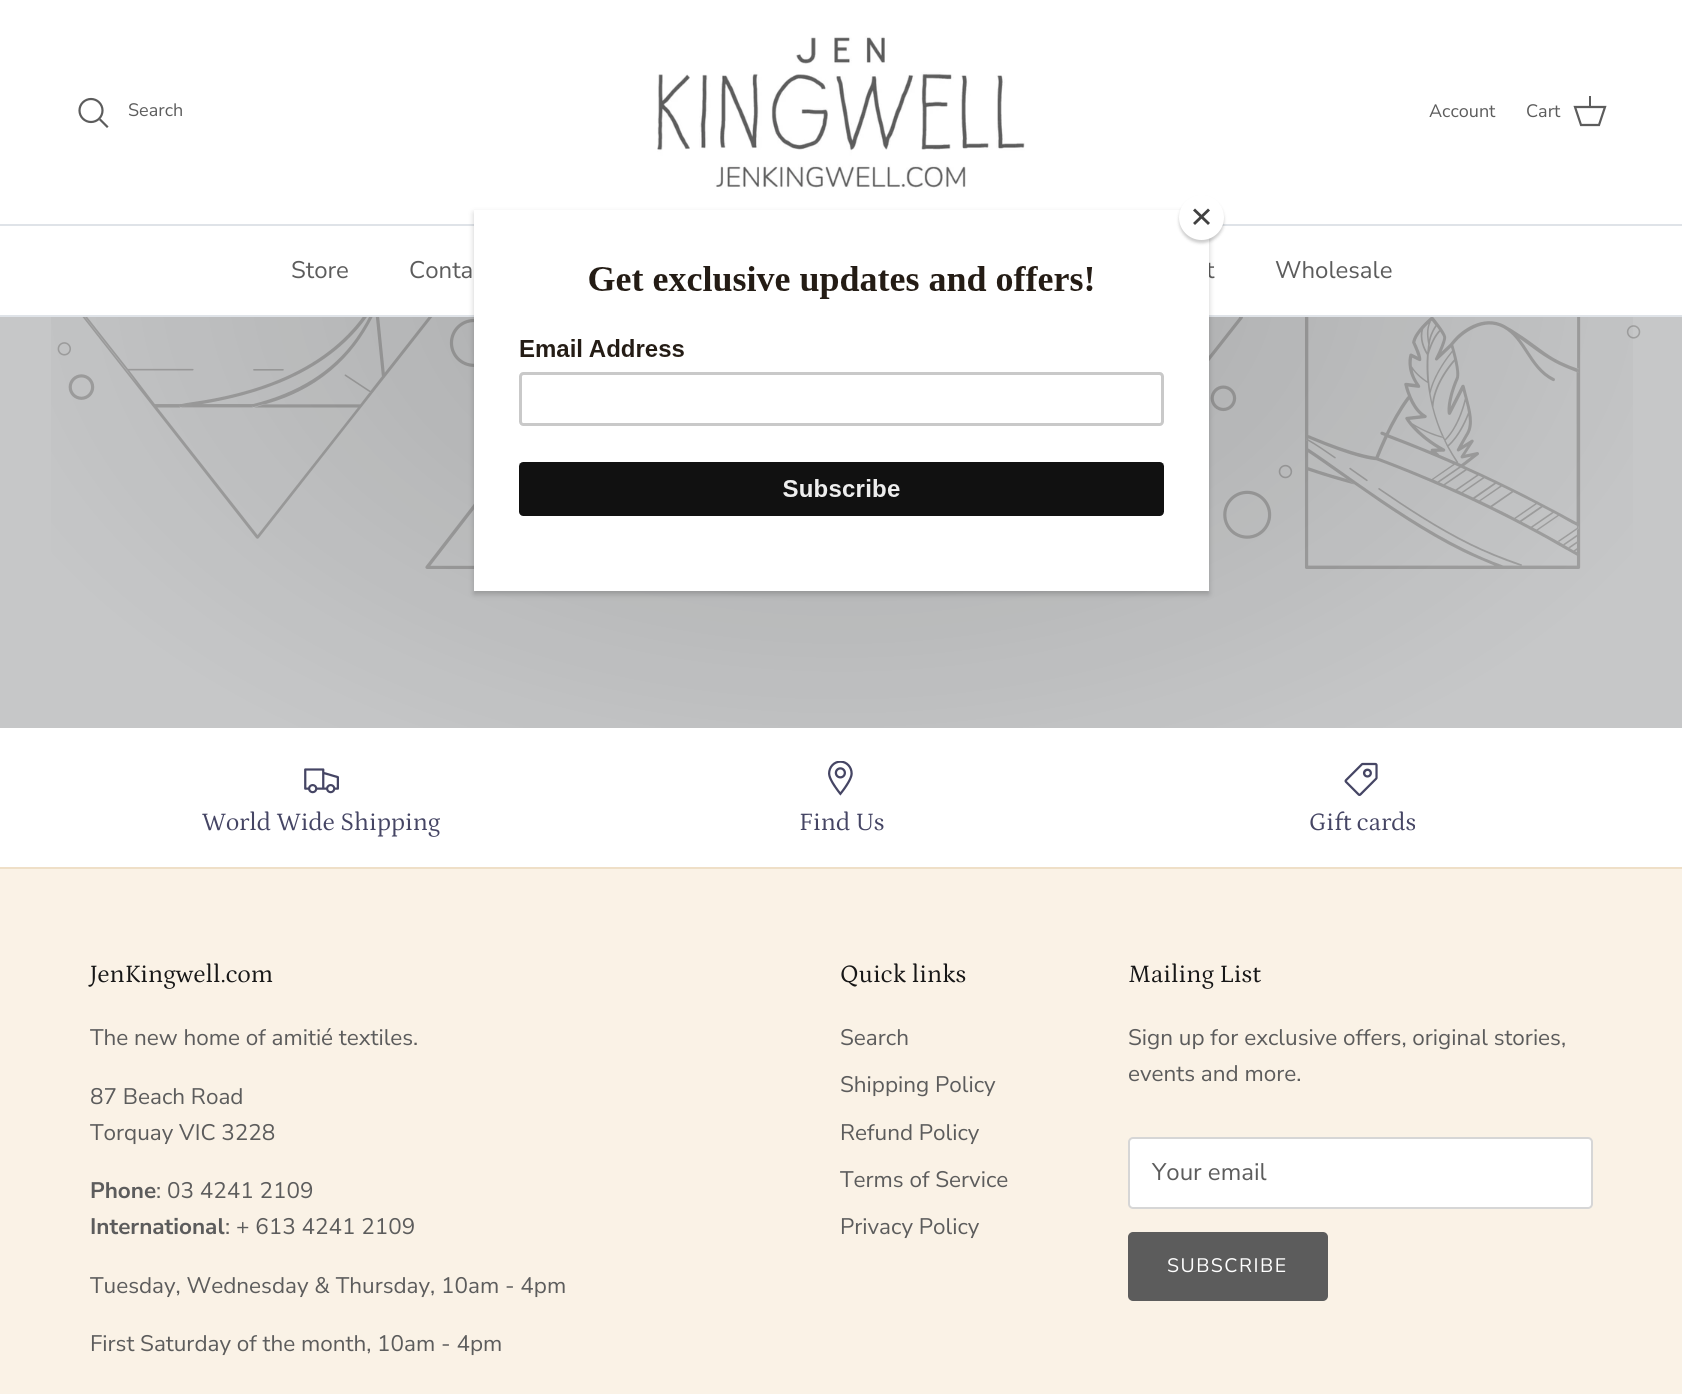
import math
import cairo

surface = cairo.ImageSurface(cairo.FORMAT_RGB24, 1682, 1394)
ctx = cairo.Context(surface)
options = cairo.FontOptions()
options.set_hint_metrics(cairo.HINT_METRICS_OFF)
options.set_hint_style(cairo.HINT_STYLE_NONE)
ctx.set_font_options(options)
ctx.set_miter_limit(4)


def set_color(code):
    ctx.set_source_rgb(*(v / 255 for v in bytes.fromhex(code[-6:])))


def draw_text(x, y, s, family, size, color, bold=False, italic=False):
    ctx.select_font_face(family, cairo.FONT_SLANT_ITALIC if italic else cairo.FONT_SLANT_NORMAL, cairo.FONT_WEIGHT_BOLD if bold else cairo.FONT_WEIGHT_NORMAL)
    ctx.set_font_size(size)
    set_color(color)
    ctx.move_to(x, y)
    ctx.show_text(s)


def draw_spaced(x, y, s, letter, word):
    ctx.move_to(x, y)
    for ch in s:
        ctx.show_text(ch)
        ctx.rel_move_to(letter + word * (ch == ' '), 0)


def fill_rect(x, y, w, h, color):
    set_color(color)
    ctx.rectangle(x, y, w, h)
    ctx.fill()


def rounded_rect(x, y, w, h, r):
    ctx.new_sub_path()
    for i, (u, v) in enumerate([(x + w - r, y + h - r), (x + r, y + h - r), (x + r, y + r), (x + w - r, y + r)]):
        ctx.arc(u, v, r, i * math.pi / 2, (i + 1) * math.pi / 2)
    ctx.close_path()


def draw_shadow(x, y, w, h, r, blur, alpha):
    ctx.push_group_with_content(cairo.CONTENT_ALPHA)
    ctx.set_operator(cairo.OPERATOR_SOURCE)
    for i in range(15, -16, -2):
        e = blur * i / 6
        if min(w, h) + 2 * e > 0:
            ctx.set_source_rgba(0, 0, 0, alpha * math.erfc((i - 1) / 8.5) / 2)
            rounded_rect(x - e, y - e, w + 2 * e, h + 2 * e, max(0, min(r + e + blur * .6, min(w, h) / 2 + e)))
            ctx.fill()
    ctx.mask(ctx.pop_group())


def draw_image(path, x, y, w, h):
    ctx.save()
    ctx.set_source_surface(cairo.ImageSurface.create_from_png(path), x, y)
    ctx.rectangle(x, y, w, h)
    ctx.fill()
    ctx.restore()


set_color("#ffffff")
ctx.paint()
fill_rect(0, 224, 1682, 2, "#dfe3e8")
ctx.arc(91, 110.5, 11.5, 0, 2 * math.pi)
set_color("#5c5c5c")
ctx.set_line_width(2.2)
ctx.stroke()
draw_text(128, 116, "Search", "Nunito Sans", 18, "#5c5c5c")
ctx.new_path()
ctx.move_to(100.5, 120)
ctx.line_to(107, 126.5)
ctx.set_line_cap(cairo.LINE_CAP_SQUARE)
ctx.stroke()
draw_image("assets/img1.png", 657, 36, 368, 152)
draw_text(1429, 117, "Account", "Nunito Sans", 18, "#5c5c5c")
draw_text(1526, 117, "Cart", "Nunito Sans", 18, "#5c5c5c")
ctx.new_path()
ctx.move_to(1575, 107)
ctx.line_to(1605, 107)
ctx.line_to(1599, 125)
ctx.line_to(1581, 125)
ctx.close_path()
ctx.set_line_cap(cairo.LINE_CAP_BUTT)
ctx.stroke()
fill_rect(1589, 96, 2, 12, "#5c5c5c")
fill_rect(0, 315, 1682, 2, "#dfe3e8")
draw_text(291, 278, "Store", "Nunito Sans", 24, "#5c5c5c")
draw_text(409, 278, "Conta", "Nunito Sans", 24, "#5c5c5c")
draw_text(1206, 278, "t", "Nunito Sans", 24, "#5c5c5c")
draw_text(1275, 278, "Wholesale", "Nunito Sans", 24, "#5c5c5c")
fill_rect(0, 317, 1682, 411, "#c6c7c8")
draw_image("assets/img3.png", 57, 317, 1584, 252)
gradient = cairo.RadialGradient(0, 0, 0, 0, 0, 1)
gradient.set_matrix(cairo.Matrix(1 / 1317, 0, 0, 1 / 812, -1 * 842 / 1317, -1 * 278 / 812))
gradient.add_color_stop_rgba(0, 0, 0, 0, 0.16)
gradient.add_color_stop_rgba(0.7, 0, 0, 0, 0)
ctx.set_source(gradient)
ctx.rectangle(51, 317, 1582, 411)
ctx.fill()
ctx.save()
ctx.set_fill_rule(cairo.FILL_RULE_EVEN_ODD)
ctx.new_path()
ctx.move_to(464, 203)
ctx.line_to(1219, 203)
ctx.line_to(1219, 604)
ctx.line_to(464, 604)
ctx.close_path()
ctx.move_to(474, 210)
ctx.line_to(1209, 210)
ctx.line_to(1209, 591)
ctx.line_to(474, 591)
ctx.close_path()
ctx.clip()
set_color("#000000")
draw_shadow(474, 213, 735, 381, 0, 3, 0.2)
ctx.restore()
draw_image("assets/img2.png", 474, 224, 735, 367)
set_color("#000000")
draw_shadow(1179, 198, 45, 45, 22.5, 1.5, 0.2)
set_color("#ffffff")
ctx.arc(1201.5, 217.5, 22.5, 0, 2 * math.pi)
ctx.fill()
set_color("#414141")
ctx.new_path()
ctx.move_to(1208, 208.5)
ctx.line_to(1210, 210.5)
ctx.line_to(1195, 225)
ctx.line_to(1193, 223)
ctx.close_path()
ctx.fill()
ctx.new_path()
ctx.move_to(1193, 210.5)
ctx.line_to(1195, 208.5)
ctx.line_to(1210, 223)
ctx.line_to(1208, 225)
ctx.close_path()
ctx.fill()
draw_image("assets/img4.png", 304, 768, 35, 26)
draw_text(202, 830, "World Wide Shipping", "Petrona", 25.4, "#454564")
draw_image("assets/img5.png", 828, 761, 25, 35)
draw_text(799, 830, "Find Us", "Petrona", 25.4, "#454564")
draw_image("assets/img6.png", 1344, 762, 34, 34)
draw_text(1309, 830, "Gift cards", "Petrona", 25.4, "#454564")
fill_rect(0, 869, 1682, 525, "#faf2e6")
fill_rect(0, 867, 1682, 2, "#efdfc7")
draw_text(90, 982, "JenKingwell.com", "Petrona", 25.4, "#171717")
draw_text(90, 1045, "The new home of amitié textiles.", "Nunito Sans", 22.5, "#5c5c5c")
draw_text(90, 1104, "87 Beach Road", "Nunito Sans", 22.5, "#5c5c5c")
draw_text(90, 1140, "Torquay VIC 3228", "Nunito Sans", 22.5, "#5c5c5c")
draw_text(90, 1198, "Phone", "Nunito Sans", 22.5, "#5c5c5c", bold=True)
draw_text(156, 1198, ": 03 4241 2109", "Nunito Sans", 22.5, "#5c5c5c")
draw_text(90, 1234, "International", "Nunito Sans", 22.5, "#5c5c5c", bold=True)
draw_text(225, 1234, ": + 613 4241 2109", "Nunito Sans", 22.5, "#5c5c5c")
draw_text(90, 1293, "Tuesday, Wednesday & Thursday, 10am - 4pm", "Nunito Sans", 22.5, "#5c5c5c")
draw_text(90, 1351, "First Saturday of the month, 10am - 4pm", "Nunito Sans", 22.5, "#5c5c5c")
draw_text(840, 982, "Quick links", "Petrona", 25.4, "#171717")
draw_text(840, 1045, "Search", "Nunito Sans", 22.5, "#5c5c5c")
draw_text(840, 1092, "Shipping Policy", "Nunito Sans", 22.5, "#5c5c5c")
draw_text(840, 1140, "Refund Policy", "Nunito Sans", 22.5, "#5c5c5c")
draw_text(840, 1187, "Terms of Service", "Nunito Sans", 22.5, "#5c5c5c")
draw_text(840, 1234, "Privacy Policy", "Nunito Sans", 22.5, "#5c5c5c")
draw_text(1128, 982, "Mailing List", "Petrona", 25.4, "#171717")
draw_text(1128, 1045, "Sign up for exclusive offers, original stories,", "Nunito Sans", 22.5, "#5c5c5c")
draw_text(1128, 1081, "events and more.", "Nunito Sans", 22.5, "#5c5c5c")
set_color("#ffffff")
rounded_rect(1129, 1138, 463, 70, 4)
ctx.fill_preserve()
set_color("#d6d6d6")
ctx.set_line_width(2)
ctx.stroke()
draw_text(1152, 1180, "Your email", "Nunito Sans", 24, "#5c5c5c")
rounded_rect(1129, 1233, 198, 67, 4)
ctx.fill_preserve()
ctx.stroke()
ctx.set_font_size(19.5)
set_color("#ffffff")
draw_spaced(1167, 1272, "SUBSCRIBE", 1.5, 0)
surface.write_to_png("output.png")
